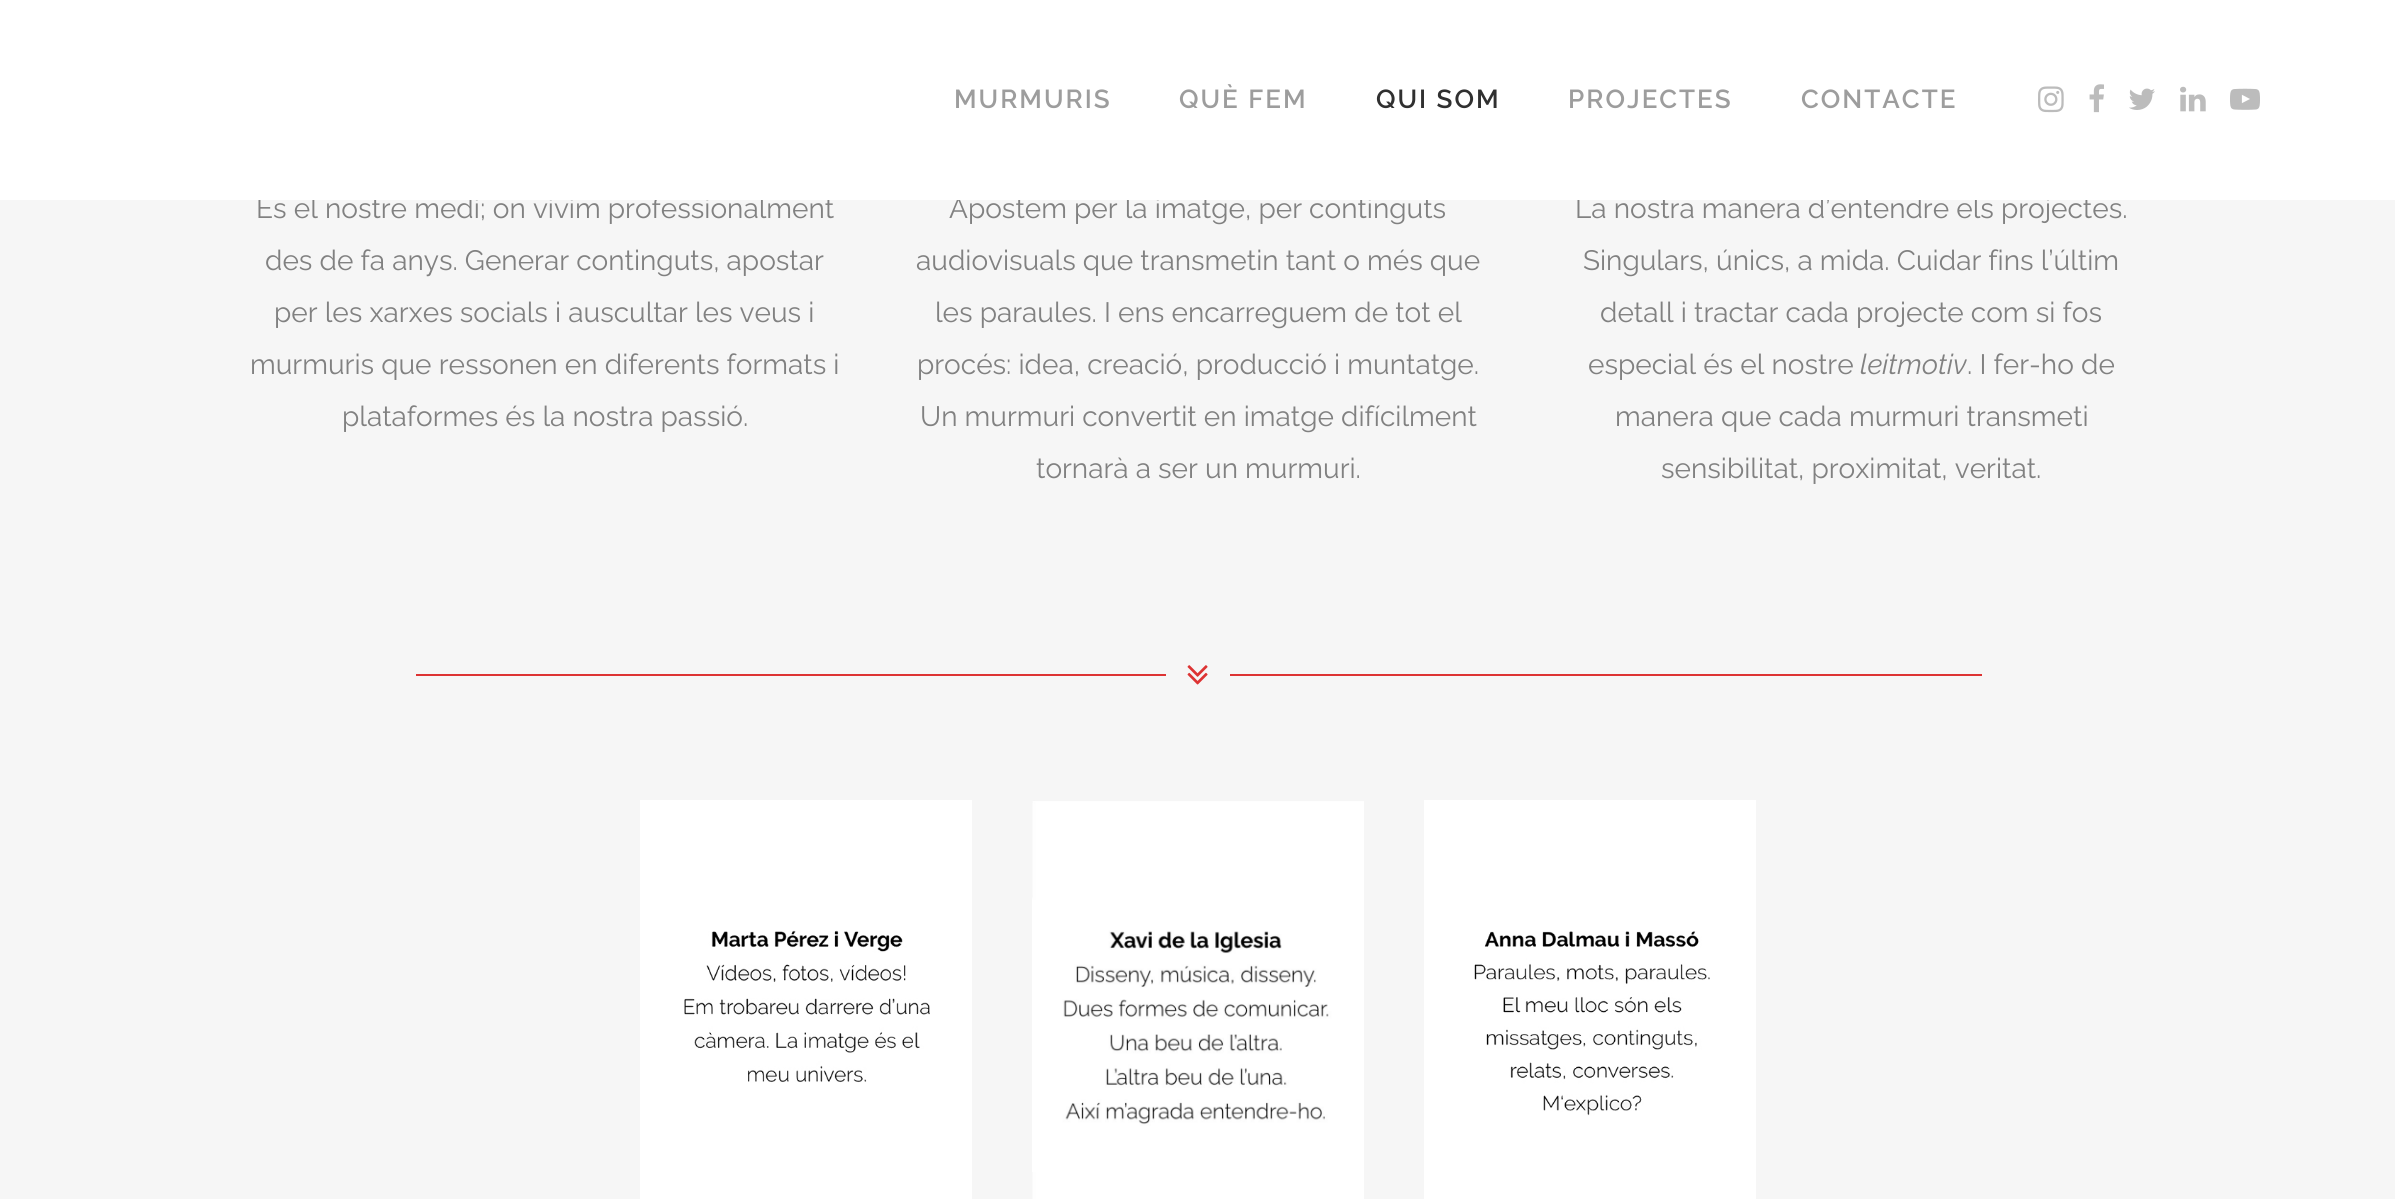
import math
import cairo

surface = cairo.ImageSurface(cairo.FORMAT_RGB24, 2395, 1199)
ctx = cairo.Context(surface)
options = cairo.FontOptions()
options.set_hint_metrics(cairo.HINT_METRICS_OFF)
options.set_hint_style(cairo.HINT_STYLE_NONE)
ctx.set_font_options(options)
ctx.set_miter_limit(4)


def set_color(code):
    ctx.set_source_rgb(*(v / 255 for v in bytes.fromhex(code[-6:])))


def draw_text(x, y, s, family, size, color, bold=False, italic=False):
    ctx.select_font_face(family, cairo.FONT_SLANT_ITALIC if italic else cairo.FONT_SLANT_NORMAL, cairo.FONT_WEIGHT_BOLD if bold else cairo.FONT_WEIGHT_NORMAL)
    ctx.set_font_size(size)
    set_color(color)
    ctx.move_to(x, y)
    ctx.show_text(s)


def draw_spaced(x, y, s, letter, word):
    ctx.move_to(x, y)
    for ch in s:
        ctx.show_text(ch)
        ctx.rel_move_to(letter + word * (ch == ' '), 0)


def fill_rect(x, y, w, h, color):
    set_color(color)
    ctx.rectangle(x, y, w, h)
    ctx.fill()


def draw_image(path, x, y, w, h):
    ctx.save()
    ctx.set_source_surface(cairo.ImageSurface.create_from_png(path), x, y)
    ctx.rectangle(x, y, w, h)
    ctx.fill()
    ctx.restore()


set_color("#f6f6f6")
ctx.paint()
draw_text(256, 218, "És el nostre medi; on vivim professionalment", "Raleway", 28, "#818181")
draw_text(949, 218, "Apostem per la imatge, per continguts", "Raleway", 28, "#818181")
draw_text(1575, 218, "La nostra manera d’entendre els projectes.", "Raleway", 28, "#818181")
fill_rect(0, 0, 2395, 200, "#ffffff")
ctx.select_font_face("Raleway SemiBold")
ctx.set_font_size(26)
set_color("#9d9d9d")
draw_spaced(954, 108, "MURMURIS", 2, 0)
draw_spaced(1179, 108, "QUÈ FEM", 2, 0)
set_color("#303030")
draw_spaced(1376, 108, "QUI SOM", 2, 0)
set_color("#9d9d9d")
draw_spaced(1568, 108, "PROJECTES", 2, 0)
draw_spaced(1801, 108, "CONTACTE", 2, 0)
draw_image("assets/img1.png", 2038, 86, 26, 27)
draw_image("assets/img2.png", 2089, 84, 15, 29)
draw_image("assets/img3.png", 2129, 88, 26, 22)
draw_image("assets/img4.png", 2180, 86, 26, 26)
draw_image("assets/img5.png", 2230, 88, 30, 22)
draw_text(265, 270, "des de fa anys. Generar continguts, apostar", "Raleway", 28, "#818181")
draw_text(274, 322, "per les xarxes socials i auscultar les veus i", "Raleway", 28, "#818181")
draw_text(250, 374, "murmuris que ressonen en diferents formats i", "Raleway", 28, "#818181")
draw_text(342, 426, "plataformes és la nostra passió.", "Raleway", 28, "#818181")
draw_text(916, 270, "audiovisuals que transmetin tant o més que", "Raleway", 28, "#818181")
draw_text(935, 322, "les paraules. I ens encarreguem de tot el", "Raleway", 28, "#818181")
draw_text(917, 374, "procés: idea, creació, producció i muntatge.", "Raleway", 28, "#818181")
draw_text(920, 426, "Un murmuri convertit en imatge difícilment", "Raleway", 28, "#818181")
draw_text(1036, 478, "tornarà a ser un murmuri.", "Raleway", 28, "#818181")
draw_text(1583, 270, "Singulars, únics, a mida. Cuidar fins l’últim", "Raleway", 28, "#818181")
draw_text(1600, 322, "detall i tractar cada projecte com si fos", "Raleway", 28, "#818181")
draw_text(1588, 374, "especial és el nostre", "Raleway", 28, "#818181")
draw_text(1860, 374, "leitmotiv", "Raleway", 28, "#818181", italic=True)
draw_text(1967, 374, ". I fer-ho de", "Raleway", 28, "#818181")
draw_text(1615, 426, "manera que cada murmuri transmeti", "Raleway", 28, "#818181")
draw_text(1661, 478, "sensibilitat, proximitat, veritat.", "Raleway", 28, "#818181")
fill_rect(416, 674, 750, 2, "#dd3333")
draw_image("assets/img6.png", 1187, 665, 21, 20)
fill_rect(1230, 674, 752, 2, "#dd3333")
fill_rect(640, 800, 332, 399, "#ffffff")
draw_image("assets/img7.png", 684, 930, 246, 153)
draw_image("assets/img8.png", 1032, 800, 332, 399)
fill_rect(1424, 800, 332, 399, "#ffffff")
draw_image("assets/img9.png", 1474, 931, 236, 185)
surface.write_to_png("output.png")
